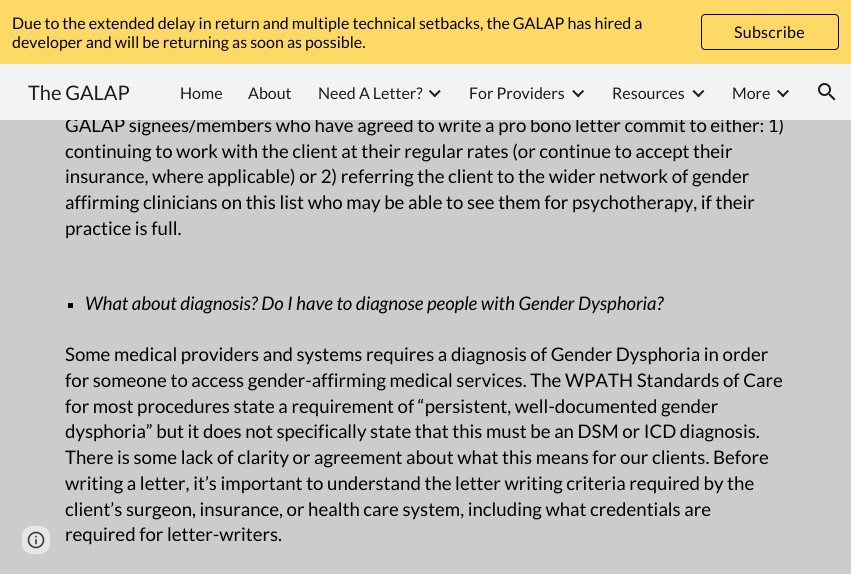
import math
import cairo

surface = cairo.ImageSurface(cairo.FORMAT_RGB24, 851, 574)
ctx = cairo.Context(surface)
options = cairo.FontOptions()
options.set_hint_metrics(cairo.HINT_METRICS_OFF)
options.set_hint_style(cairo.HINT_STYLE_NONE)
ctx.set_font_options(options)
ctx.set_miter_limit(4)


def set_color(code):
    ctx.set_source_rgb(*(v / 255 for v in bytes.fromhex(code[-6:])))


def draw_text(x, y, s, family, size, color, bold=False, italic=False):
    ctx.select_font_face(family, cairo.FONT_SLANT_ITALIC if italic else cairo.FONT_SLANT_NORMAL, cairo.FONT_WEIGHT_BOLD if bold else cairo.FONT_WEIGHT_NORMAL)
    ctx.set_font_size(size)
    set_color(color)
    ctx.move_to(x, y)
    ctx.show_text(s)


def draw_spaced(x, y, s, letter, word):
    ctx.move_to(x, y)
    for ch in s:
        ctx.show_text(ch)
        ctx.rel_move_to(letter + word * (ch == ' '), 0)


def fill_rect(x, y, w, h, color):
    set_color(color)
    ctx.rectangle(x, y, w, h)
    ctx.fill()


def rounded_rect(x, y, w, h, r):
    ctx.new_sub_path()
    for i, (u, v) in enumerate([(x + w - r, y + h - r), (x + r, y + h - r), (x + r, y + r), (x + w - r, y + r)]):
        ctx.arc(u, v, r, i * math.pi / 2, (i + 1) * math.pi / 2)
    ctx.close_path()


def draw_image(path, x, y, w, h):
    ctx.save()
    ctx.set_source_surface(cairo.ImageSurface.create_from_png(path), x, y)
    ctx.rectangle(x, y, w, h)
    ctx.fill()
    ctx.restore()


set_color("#cccccc")
ctx.paint()
fill_rect(0, 0, 851, 64, "#ffd966")
draw_text(12, 29, "Due to the extended delay in return and multiple technical setbacks, the GALAP has hired a", "Lato", 16, "#000000")
draw_text(12, 48, "developer and will be returning as soon as possible.", "Lato", 16, "#000000")
rounded_rect(701.5, 14.5, 137, 35, 3.5)
ctx.set_line_width(1)
ctx.stroke()
draw_spaced(734, 38, "Subscribe", 0.25, 0)
draw_text(65, 132, "GALAP signees/members who have agreed to write a pro bono letter commit to either: 1)", "Lato", 18.65, "#000000")
fill_rect(0, 64, 851, 56, "#f3f3f3")
draw_text(28, 100, "The GALAP", "Lato", 20, "#1c1c1c")
draw_text(180, 99, "Home", "Lato", 16, "#1c1c1c")
draw_text(248, 99, "About", "Lato", 16, "#1c1c1c")
draw_text(318, 99, "Need A Letter?", "Lato", 16, "#1c1c1c")
draw_image("assets/img1.png", 428, 90, 13, 8)
draw_text(469, 99, "For Providers", "Lato", 16, "#1c1c1c")
draw_image("assets/img2.png", 572, 90, 12, 8)
draw_text(612, 99, "Resources", "Lato", 16, "#1c1c1c")
draw_image("assets/img3.png", 692, 90, 13, 8)
draw_text(732, 99, "More", "Lato", 16, "#1c1c1c")
draw_image("assets/img4.png", 777, 90, 12, 8)
draw_image("assets/img5.png", 818, 83, 18, 18)
set_color("#e6e6e6")
rounded_rect(22, 526, 28, 28, 10)
ctx.fill()
draw_image("assets/img6.png", 27, 531, 18, 18)
draw_text(65, 158, "continuing to work with the client at their regular rates (or continue to accept their", "Lato", 18.65, "#000000")
draw_text(65, 183, "insurance, where applicable) or 2) referring the client to the wider network of gender", "Lato", 18.65, "#000000")
draw_text(65, 209, "affirming clinicians on this list who may be able to see them for psychotherapy, if their", "Lato", 18.65, "#000000")
draw_text(65, 235, "practice is full.", "Lato", 18.65, "#000000")
fill_rect(68, 303, 5, 5, "#000000")
draw_text(85, 310, "What about diagnosis? Do I have to diagnose people with Gender Dysphoria?", "Lato", 18.65, "#000000", italic=True)
draw_text(65, 361, "Some medical providers and systems requires a diagnosis of Gender Dysphoria in order", "Lato", 18.65, "#000000")
draw_text(65, 387, "for someone to access gender-affirming medical services. The WPATH Standards of Care", "Lato", 18.65, "#000000")
draw_text(65, 413, "for most procedures state a requirement of “persistent, well-documented gender", "Lato", 18.65, "#000000")
draw_text(65, 438, "dysphoria” but it does not specifically state that this must be an DSM or ICD diagnosis.", "Lato", 18.65, "#000000")
draw_text(65, 464, "There is some lack of clarity or agreement about what this means for our clients. Before", "Lato", 18.65, "#000000")
draw_text(65, 490, "writing a letter, it’s important to understand the letter writing criteria required by the", "Lato", 18.65, "#000000")
draw_text(65, 516, "client’s surgeon, insurance, or health care system, including what credentials are", "Lato", 18.65, "#000000")
draw_text(65, 541, "required for letter-writers.", "Lato", 18.65, "#000000")
surface.write_to_png("output.png")
